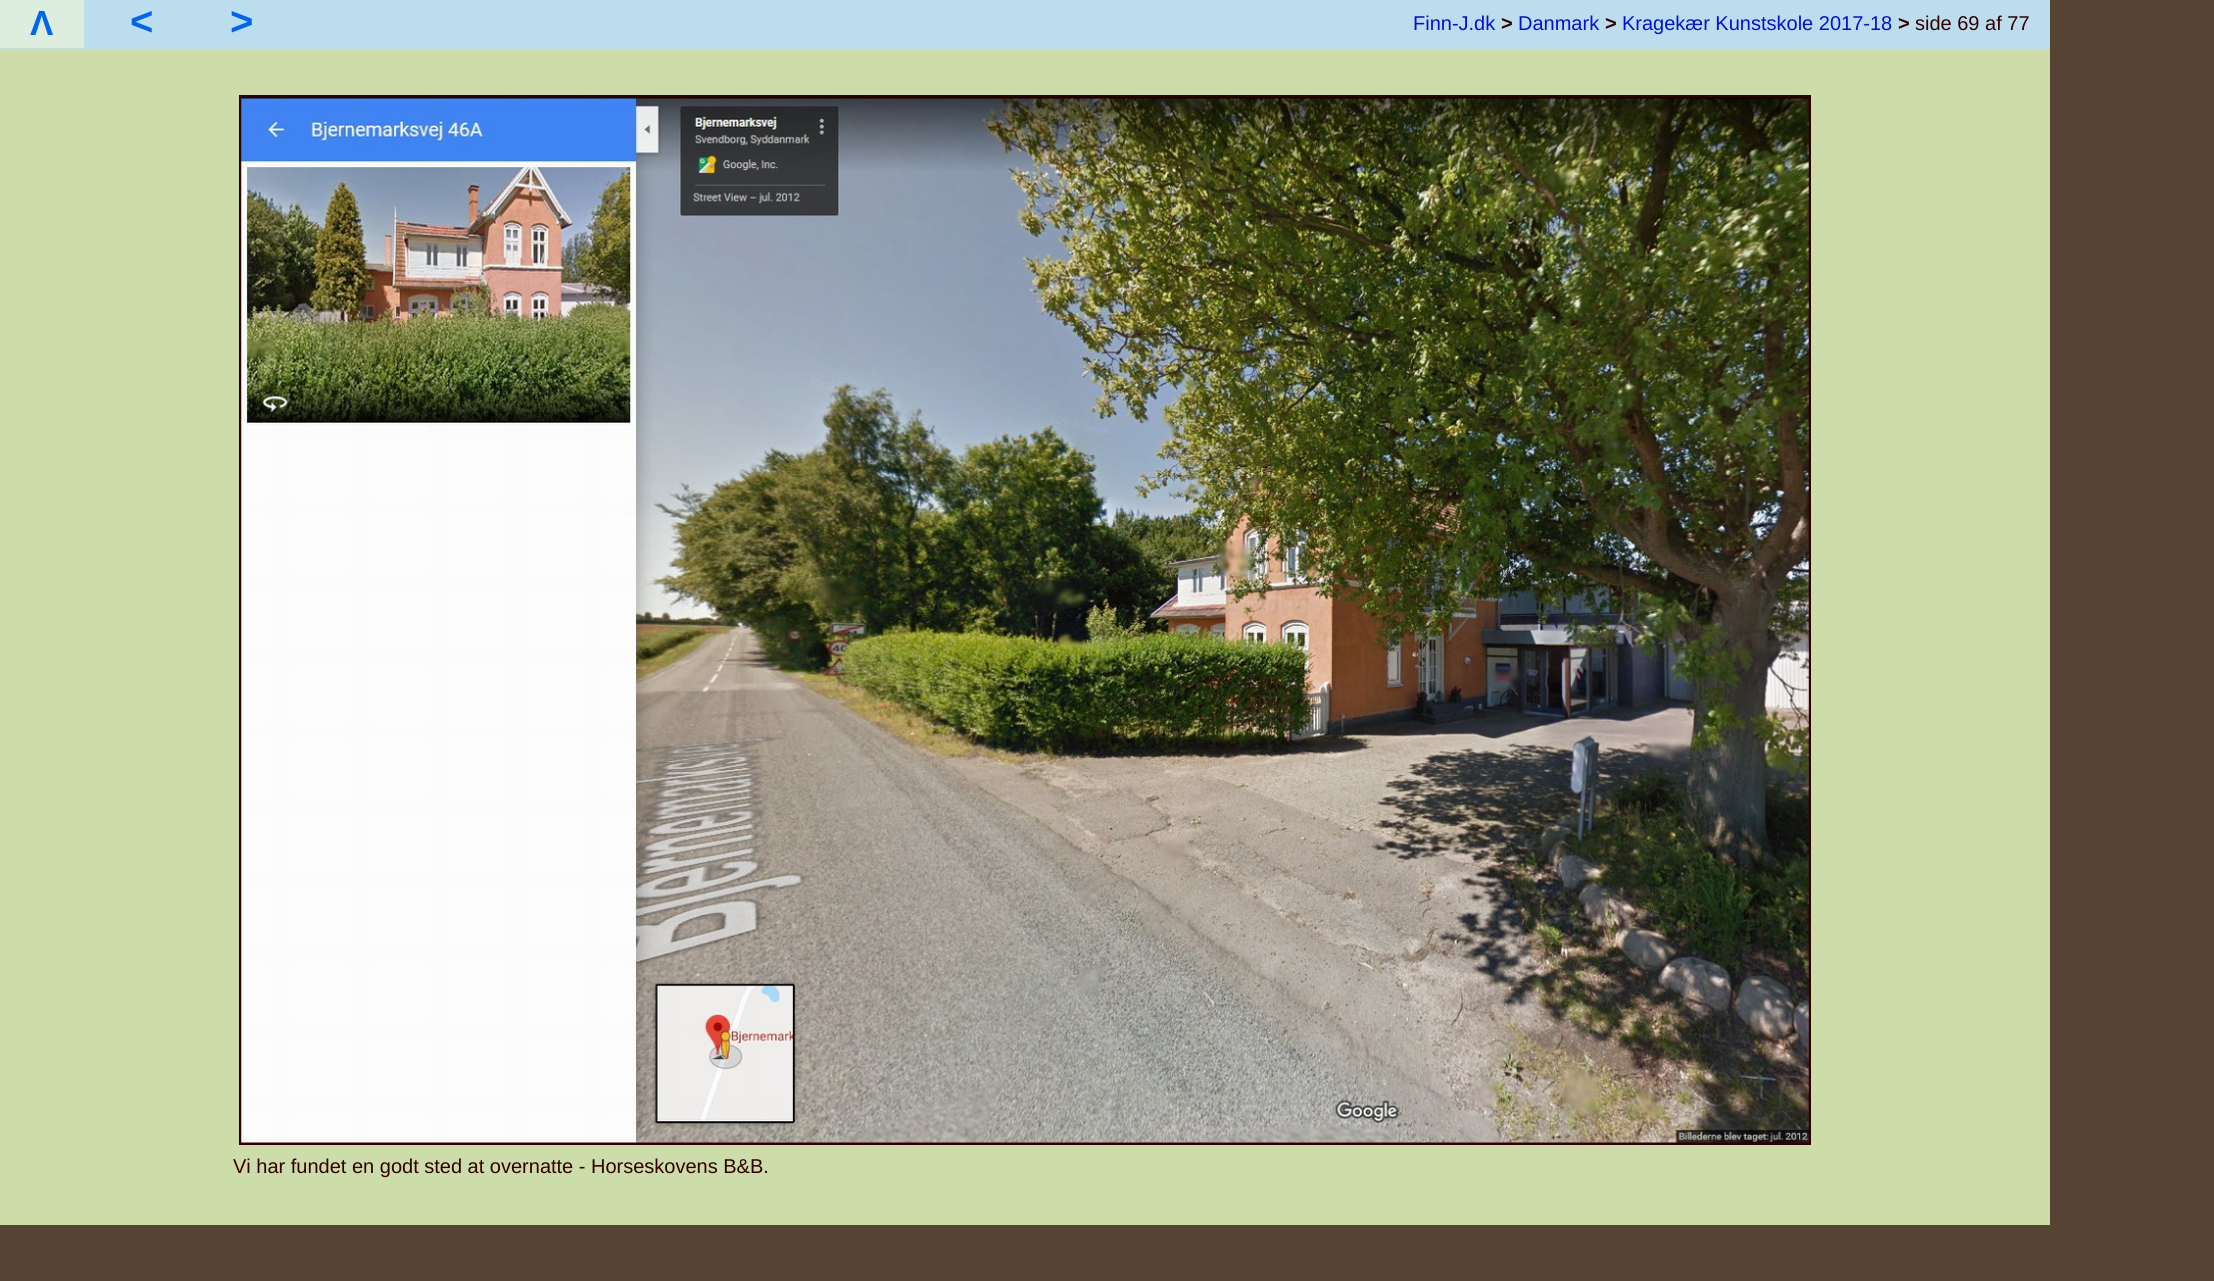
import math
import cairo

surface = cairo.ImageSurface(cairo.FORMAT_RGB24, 2214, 1281)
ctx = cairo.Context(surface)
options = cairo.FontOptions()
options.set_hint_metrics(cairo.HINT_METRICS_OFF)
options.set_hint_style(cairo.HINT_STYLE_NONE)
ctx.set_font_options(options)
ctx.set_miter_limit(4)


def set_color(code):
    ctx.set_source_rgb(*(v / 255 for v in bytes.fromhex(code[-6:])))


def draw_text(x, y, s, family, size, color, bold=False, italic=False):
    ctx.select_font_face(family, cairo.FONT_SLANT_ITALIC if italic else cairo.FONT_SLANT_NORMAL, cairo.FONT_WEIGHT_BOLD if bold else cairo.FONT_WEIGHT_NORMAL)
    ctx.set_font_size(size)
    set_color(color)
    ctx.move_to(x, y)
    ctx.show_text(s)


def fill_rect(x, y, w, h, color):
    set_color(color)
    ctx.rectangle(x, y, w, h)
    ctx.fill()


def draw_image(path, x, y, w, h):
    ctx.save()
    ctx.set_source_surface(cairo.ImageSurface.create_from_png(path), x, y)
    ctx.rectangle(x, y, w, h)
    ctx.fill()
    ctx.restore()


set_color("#554433")
ctx.paint()
fill_rect(0, 50, 2050, 1175, "#ccddaa")
fill_rect(0, 0, 2050, 50, "#bbddee")
fill_rect(0, 0, 84, 48, "#ddeedd")
draw_text(30, 35, "Λ", "Liberation Sans", 35, "#0066ee", bold=True)
draw_text(130, 35, "<", "Liberation Sans", 40, "#0066ee", bold=True)
draw_text(230, 35, ">", "Liberation Sans", 40, "#0066ee", bold=True)
draw_text(1413, 30, "Finn-J.dk", "Liberation Sans", 20, "#0011dd")
draw_text(1501, 30, ">", "Liberation Sans", 20, "#330000", bold=True)
draw_text(1518, 30, "Danmark", "Liberation Sans", 20, "#0011dd")
draw_text(1605, 30, ">", "Liberation Sans", 20, "#330000", bold=True)
draw_text(1622, 30, "Kragekær Kunstskole 2017-18", "Liberation Sans", 20, "#0011dd")
draw_text(1898, 30, ">", "Liberation Sans", 20, "#330000", bold=True)
draw_text(1915, 30, "side 69 af 77", "Liberation Sans", 20, "#330000")
ctx.rectangle(240.5, 96.5, 1569, 1047)
ctx.set_line_width(3)
ctx.stroke()
draw_image("assets/img1.png", 241, 97, 1568, 1046)
draw_text(233, 1173, "Vi har fundet en godt sted at overnatte - Horseskovens B&B.", "Liberation Sans", 20, "#330000")
surface.write_to_png("output.png")
